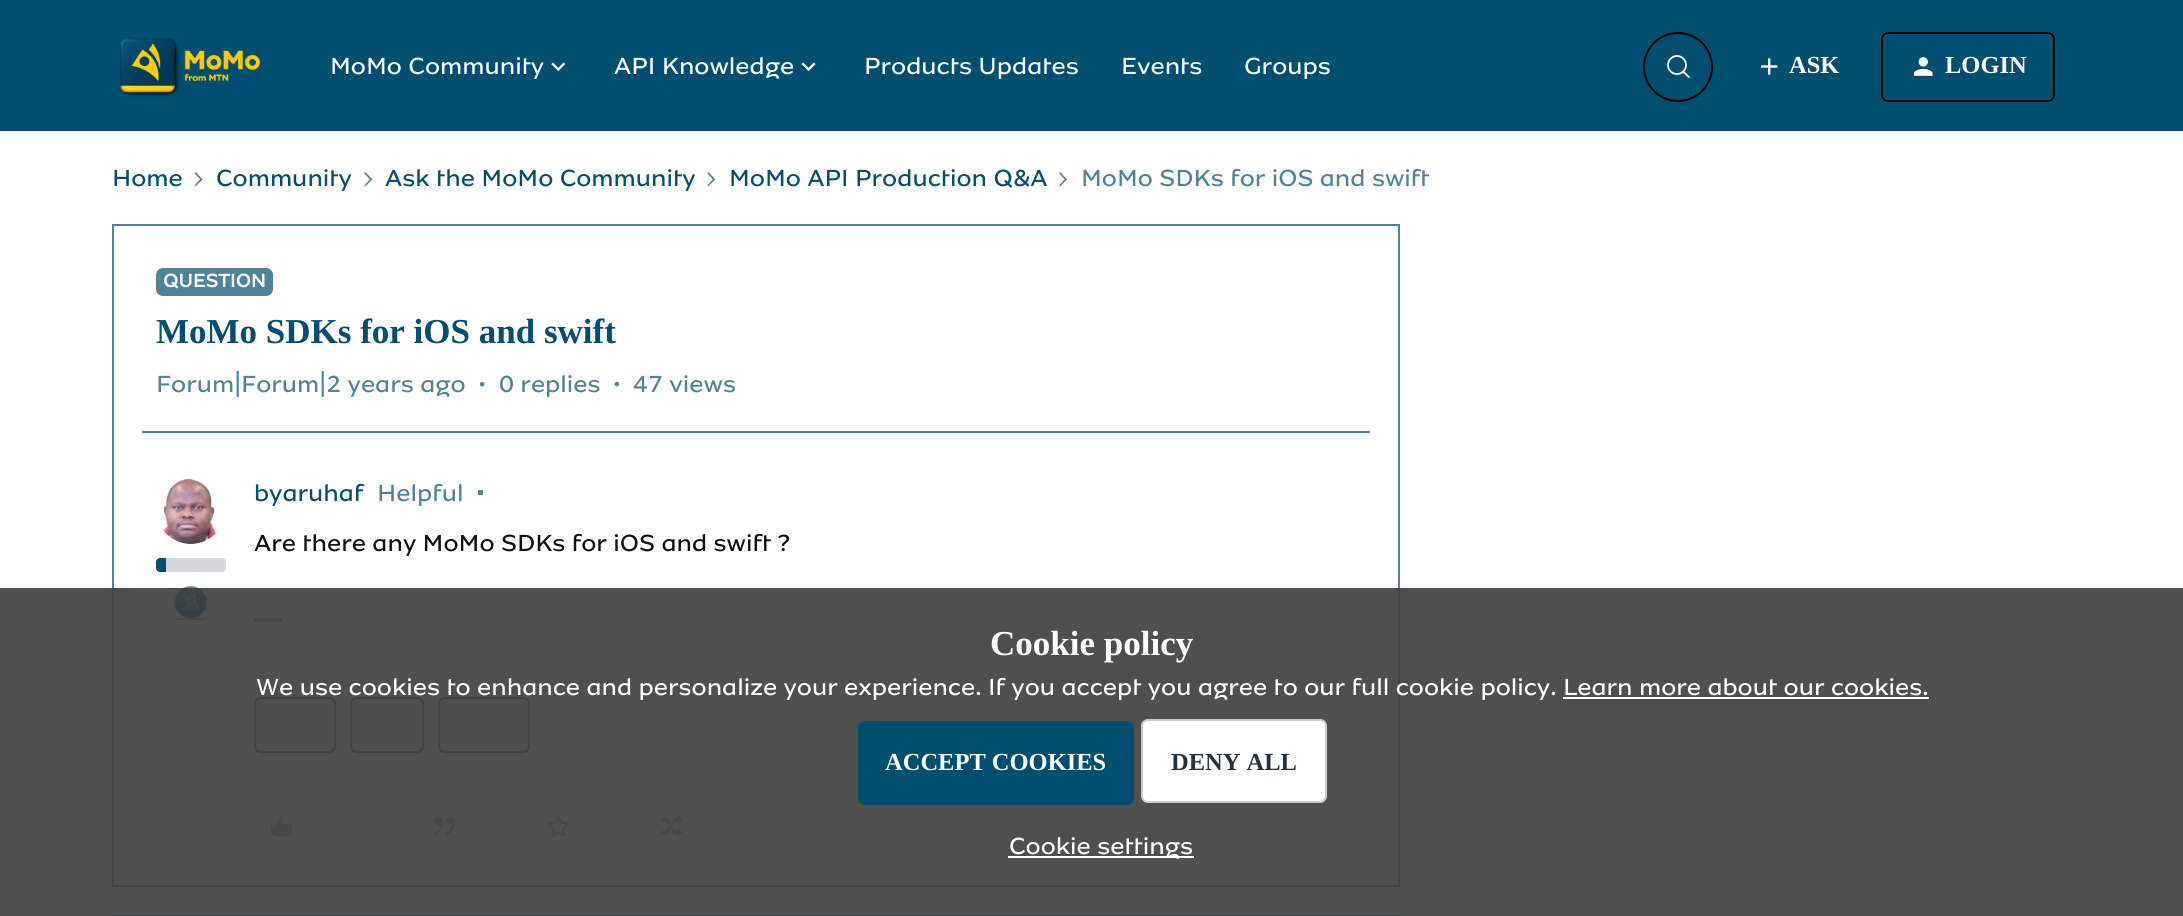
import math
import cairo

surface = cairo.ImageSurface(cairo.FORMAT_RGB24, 2183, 916)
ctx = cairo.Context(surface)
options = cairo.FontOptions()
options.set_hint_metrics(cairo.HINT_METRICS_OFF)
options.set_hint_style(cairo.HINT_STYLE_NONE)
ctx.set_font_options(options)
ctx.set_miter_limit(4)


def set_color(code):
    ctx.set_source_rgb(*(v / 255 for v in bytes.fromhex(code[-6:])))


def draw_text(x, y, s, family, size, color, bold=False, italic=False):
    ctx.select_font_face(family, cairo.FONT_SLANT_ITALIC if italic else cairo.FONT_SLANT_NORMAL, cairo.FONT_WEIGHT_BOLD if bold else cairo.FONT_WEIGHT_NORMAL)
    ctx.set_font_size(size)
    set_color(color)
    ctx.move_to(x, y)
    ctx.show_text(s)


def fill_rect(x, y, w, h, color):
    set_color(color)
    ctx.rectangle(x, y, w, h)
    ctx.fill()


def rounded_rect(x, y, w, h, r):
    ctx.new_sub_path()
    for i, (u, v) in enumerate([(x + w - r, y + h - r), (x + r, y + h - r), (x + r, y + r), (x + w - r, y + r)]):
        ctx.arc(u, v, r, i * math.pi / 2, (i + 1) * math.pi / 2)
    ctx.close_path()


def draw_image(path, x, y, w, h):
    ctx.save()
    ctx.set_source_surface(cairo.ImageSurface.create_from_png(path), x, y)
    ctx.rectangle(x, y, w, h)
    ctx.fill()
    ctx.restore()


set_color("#ffffff")
ctx.paint()
fill_rect(0, 0, 2183, 131, "#004f71")
draw_image("assets/img1.png", 119, 38, 142, 59)
draw_text(330, 74, "MoMo Community", "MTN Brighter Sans", 24.5, "#ffffff")
draw_image("assets/img2.png", 551, 62, 15, 10)
draw_text(614, 74, "API Knowledge", "MTN Brighter Sans", 24.5, "#ffffff")
draw_image("assets/img3.png", 801, 62, 15, 10)
draw_text(864, 74, "Products Updates", "MTN Brighter Sans", 24.5, "#ffffff")
draw_text(1121, 74, "Events", "MTN Brighter Sans", 24.5, "#ffffff")
draw_text(1244, 74, "Groups", "MTN Brighter Sans", 24.5, "#ffffff")
ctx.new_path()
ctx.arc(1678, 67, 34, 0, 2 * math.pi)
set_color("#000000")
ctx.stroke()
ctx.arc(1677, 65, 9, 0, 2 * math.pi)
set_color("#ffffff")
ctx.set_line_width(1.8)
ctx.stroke()
ctx.new_path()
ctx.move_to(1683.5, 72)
ctx.line_to(1689, 77)
ctx.set_line_cap(cairo.LINE_CAP_ROUND)
ctx.stroke()
draw_image("assets/img4.png", 1761, 58, 17, 17)
draw_text(1789, 73, "ASK", "Liberation Serif", 24.5, "#ffffff", bold=True)
rounded_rect(1882, 33, 172, 68, 6)
set_color("#000000")
ctx.set_line_width(2)
ctx.set_line_cap(cairo.LINE_CAP_BUTT)
ctx.stroke()
draw_image("assets/img5.png", 1913, 57, 20, 19)
draw_text(1945, 73, "LOGIN", "Liberation Serif", 24.5, "#ffffff", bold=True)
draw_text(112, 186, "Home", "MTN Brighter Sans", 24.5, "#004f71")
draw_image("assets/img6.png", 194, 172, 9, 15)
draw_text(216, 186, "Community", "MTN Brighter Sans", 24.5, "#004f71")
draw_image("assets/img7.png", 364, 172, 9, 15)
draw_text(385, 186, "Ask the MoMo Community", "MTN Brighter Sans", 24.5, "#004f71")
draw_image("assets/img7.png", 707, 172, 9, 15)
draw_text(729, 186, "MoMo API Production Q&A", "MTN Brighter Sans", 24.5, "#004f71")
draw_image("assets/img8.png", 1059, 172, 8, 15)
draw_text(1081, 186, "MoMo SDKs for iOS and swift", "MTN Brighter Sans", 24.5, "#4d849c")
ctx.rectangle(113, 225, 1286, 661)
ctx.stroke()
rounded_rect(156, 268, 117, 28, 7)
ctx.fill()
draw_text(163, 287, "QUESTION", "MTN Brighter Sans", 19.25, "#ffffff", bold=True)
draw_text(156, 343, "MoMo SDKs for iOS and swift", "Liberation Serif", 35, "#004f71", bold=True)
draw_text(156, 392, "Forum|Forum|2 years ago", "MTN Brighter Sans", 24.5, "#4d849c")
draw_image("assets/img9.png", 479, 381, 6, 6)
draw_text(499, 392, "0 replies", "MTN Brighter Sans", 24.5, "#4d849c")
draw_image("assets/img10.png", 614, 381, 6, 6)
draw_text(633, 392, "47 views", "MTN Brighter Sans", 24.5, "#4d849c")
fill_rect(142, 431, 1228, 2, "#4d849c")
draw_image("assets/img11.png", 163, 478, 54, 66)
set_color("#d5d7db")
rounded_rect(156, 558, 70, 14, 4)
ctx.fill()
set_color("#004f71")
ctx.new_path()
ctx.move_to(160, 558)
ctx.line_to(166, 558)
ctx.line_to(166, 572)
ctx.line_to(160, 572)
ctx.curve_to(158, 572, 156, 570, 156, 568)
ctx.line_to(156, 562)
ctx.curve_to(156, 560, 158, 558, 160, 558)
ctx.close_path()
ctx.fill()
draw_image("assets/img12.png", 174, 586, 34, 35)
draw_text(254, 501, "byaruhaf", "MTN Brighter Sans", 24.5, "#004f71")
draw_text(377, 501, "Helpful", "MTN Brighter Sans", 24.5, "#4d849c")
fill_rect(478, 490, 5, 5, "#4d849c")
draw_text(254, 551, "Are there any MoMo SDKs for iOS and swift ?", "MTN Brighter Sans", 24.5, "#0f1117")
fill_rect(254, 618, 28, 4, "#a7aeb5")
set_color("#f8f8f8")
rounded_rect(255, 698, 80, 54, 6)
ctx.fill_preserve()
set_color("#4d849c")
ctx.stroke()
set_color("#f8f8f8")
rounded_rect(351, 698, 72, 54, 6)
ctx.fill_preserve()
set_color("#4d849c")
ctx.stroke()
set_color("#f8f8f8")
rounded_rect(439, 698, 90, 54, 6)
ctx.fill_preserve()
set_color("#4d849c")
ctx.stroke()
draw_image("assets/img13.png", 271, 815, 22, 22)
draw_image("assets/img14.png", 433, 816, 23, 19)
draw_image("assets/img15.png", 547, 815, 22, 22)
draw_image("assets/img16.png", 661, 815, 22, 22)
ctx.rectangle(113, 916, 1286, 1)
ctx.stroke()
ctx.set_source_rgba(0.235, 0.235, 0.235, 0.9)
ctx.rectangle(0, 588, 2183, 328)
ctx.fill()
draw_text(990, 655, "Cookie policy", "Liberation Serif", 35, "#ffffff", bold=True)
draw_text(256, 695, "We use cookies to enhance and personalize your experience. If you accept you agree to our full cookie policy. Learn more about our cookies.", "MTN Brighter Sans", 24.5, "#ffffff")
fill_rect(1563, 697, 366, 2, "#ffffff")
set_color("#004f71")
rounded_rect(859, 722, 274, 82, 6)
ctx.fill_preserve()
ctx.stroke()
draw_text(885, 770, "ACCEPT COOKIES", "Liberation Serif", 24.5, "#ffffff", bold=True)
rounded_rect(1141, 719, 186, 84, 7)
ctx.fill()
rounded_rect(1142, 720, 184, 82, 6)
ctx.set_source_rgba(0, 0, 0, 0.2)
ctx.stroke()
draw_text(1171, 770, "DENY ALL", "Liberation Serif", 24.5, "#25313b", bold=True)
fill_rect(1008, 856, 186, 2, "#ffffff")
draw_text(1009, 854, "Cookie settings", "MTN Brighter Sans", 24.5, "#ffffff")
surface.write_to_png("output.png")
